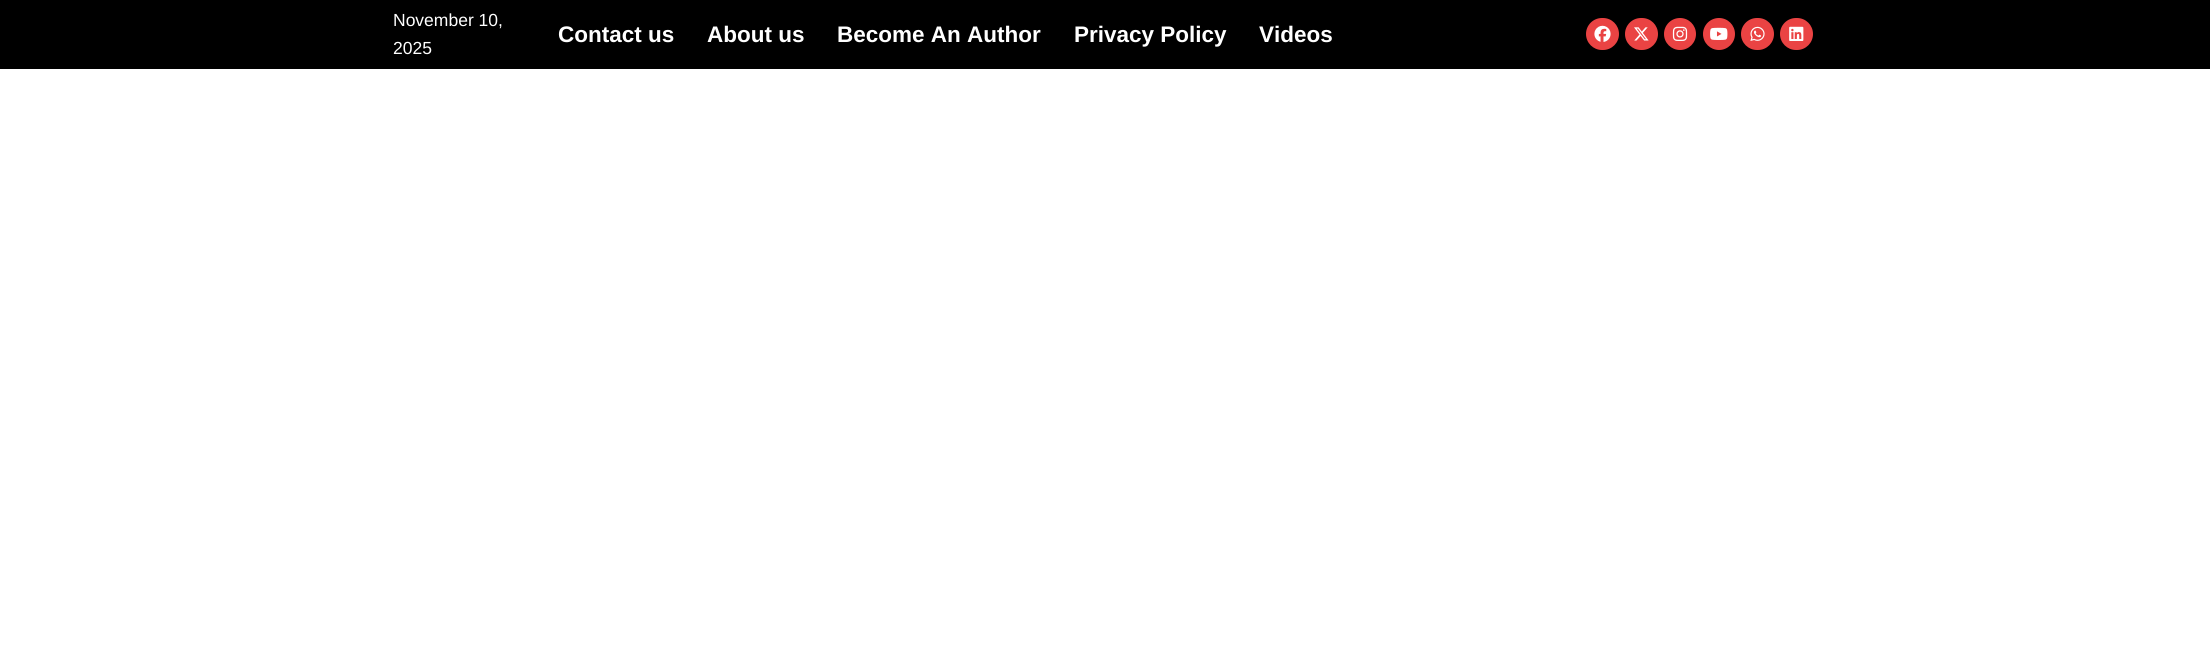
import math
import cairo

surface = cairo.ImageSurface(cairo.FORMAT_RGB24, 2210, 671)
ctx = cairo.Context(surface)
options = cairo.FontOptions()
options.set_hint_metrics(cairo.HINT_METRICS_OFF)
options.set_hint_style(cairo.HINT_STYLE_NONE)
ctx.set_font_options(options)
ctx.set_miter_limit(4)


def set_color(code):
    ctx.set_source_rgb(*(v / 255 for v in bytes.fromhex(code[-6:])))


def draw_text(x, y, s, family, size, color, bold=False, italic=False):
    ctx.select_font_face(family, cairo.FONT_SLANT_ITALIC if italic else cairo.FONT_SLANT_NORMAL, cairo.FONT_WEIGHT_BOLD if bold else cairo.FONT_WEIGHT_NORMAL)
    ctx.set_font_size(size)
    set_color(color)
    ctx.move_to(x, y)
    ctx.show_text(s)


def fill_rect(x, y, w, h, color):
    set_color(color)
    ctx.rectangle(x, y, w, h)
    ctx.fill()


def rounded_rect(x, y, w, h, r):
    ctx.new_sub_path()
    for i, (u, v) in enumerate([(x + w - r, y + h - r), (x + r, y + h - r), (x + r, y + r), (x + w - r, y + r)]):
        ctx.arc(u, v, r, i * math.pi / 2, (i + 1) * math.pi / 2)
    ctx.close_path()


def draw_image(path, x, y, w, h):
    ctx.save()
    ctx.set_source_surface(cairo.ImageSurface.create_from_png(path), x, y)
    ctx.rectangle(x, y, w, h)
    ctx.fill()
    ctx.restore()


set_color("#ffffff")
ctx.paint()
fill_rect(0, 0, 2210, 69, "#000000")
draw_text(393, 26, "November 10,", "Liberation Sans", 17.5, "#ffffff")
draw_text(393, 54, "2025", "Liberation Sans", 17.5, "#ffffff")
draw_text(558, 42, "Contact us", "Liberation Sans", 22.5, "#ffffff", bold=True)
draw_text(707, 42, "About us", "Liberation Sans", 22.5, "#ffffff", bold=True)
draw_text(837, 42, "Become An Author", "Liberation Sans", 22.5, "#ffffff", bold=True)
draw_text(1074, 42, "Privacy Policy", "Liberation Sans", 22.5, "#ffffff", bold=True)
draw_text(1259, 42, "Videos", "Liberation Sans", 22.5, "#ffffff", bold=True)
set_color("#ea4343")
rounded_rect(1586, 18, 33, 32, 16)
ctx.fill()
draw_image("assets/img1.png", 1594, 25, 17, 17)
rounded_rect(1625, 18, 33, 32, 16)
ctx.fill()
draw_image("assets/img2.png", 1634, 27, 15, 14)
ctx.arc(1680, 34, 16, 0, 2 * math.pi)
ctx.fill()
draw_image("assets/img3.png", 1672, 26, 16, 15)
ctx.arc(1719, 34, 16, 0, 2 * math.pi)
ctx.fill()
draw_image("assets/img4.png", 1710, 27, 18, 13)
rounded_rect(1741, 18, 33, 32, 16)
ctx.fill()
draw_image("assets/img5.png", 1750, 26, 15, 15)
rounded_rect(1780, 18, 33, 32, 16)
ctx.fill()
draw_image("assets/img6.png", 1789, 26, 15, 15)
surface.write_to_png("output.png")
